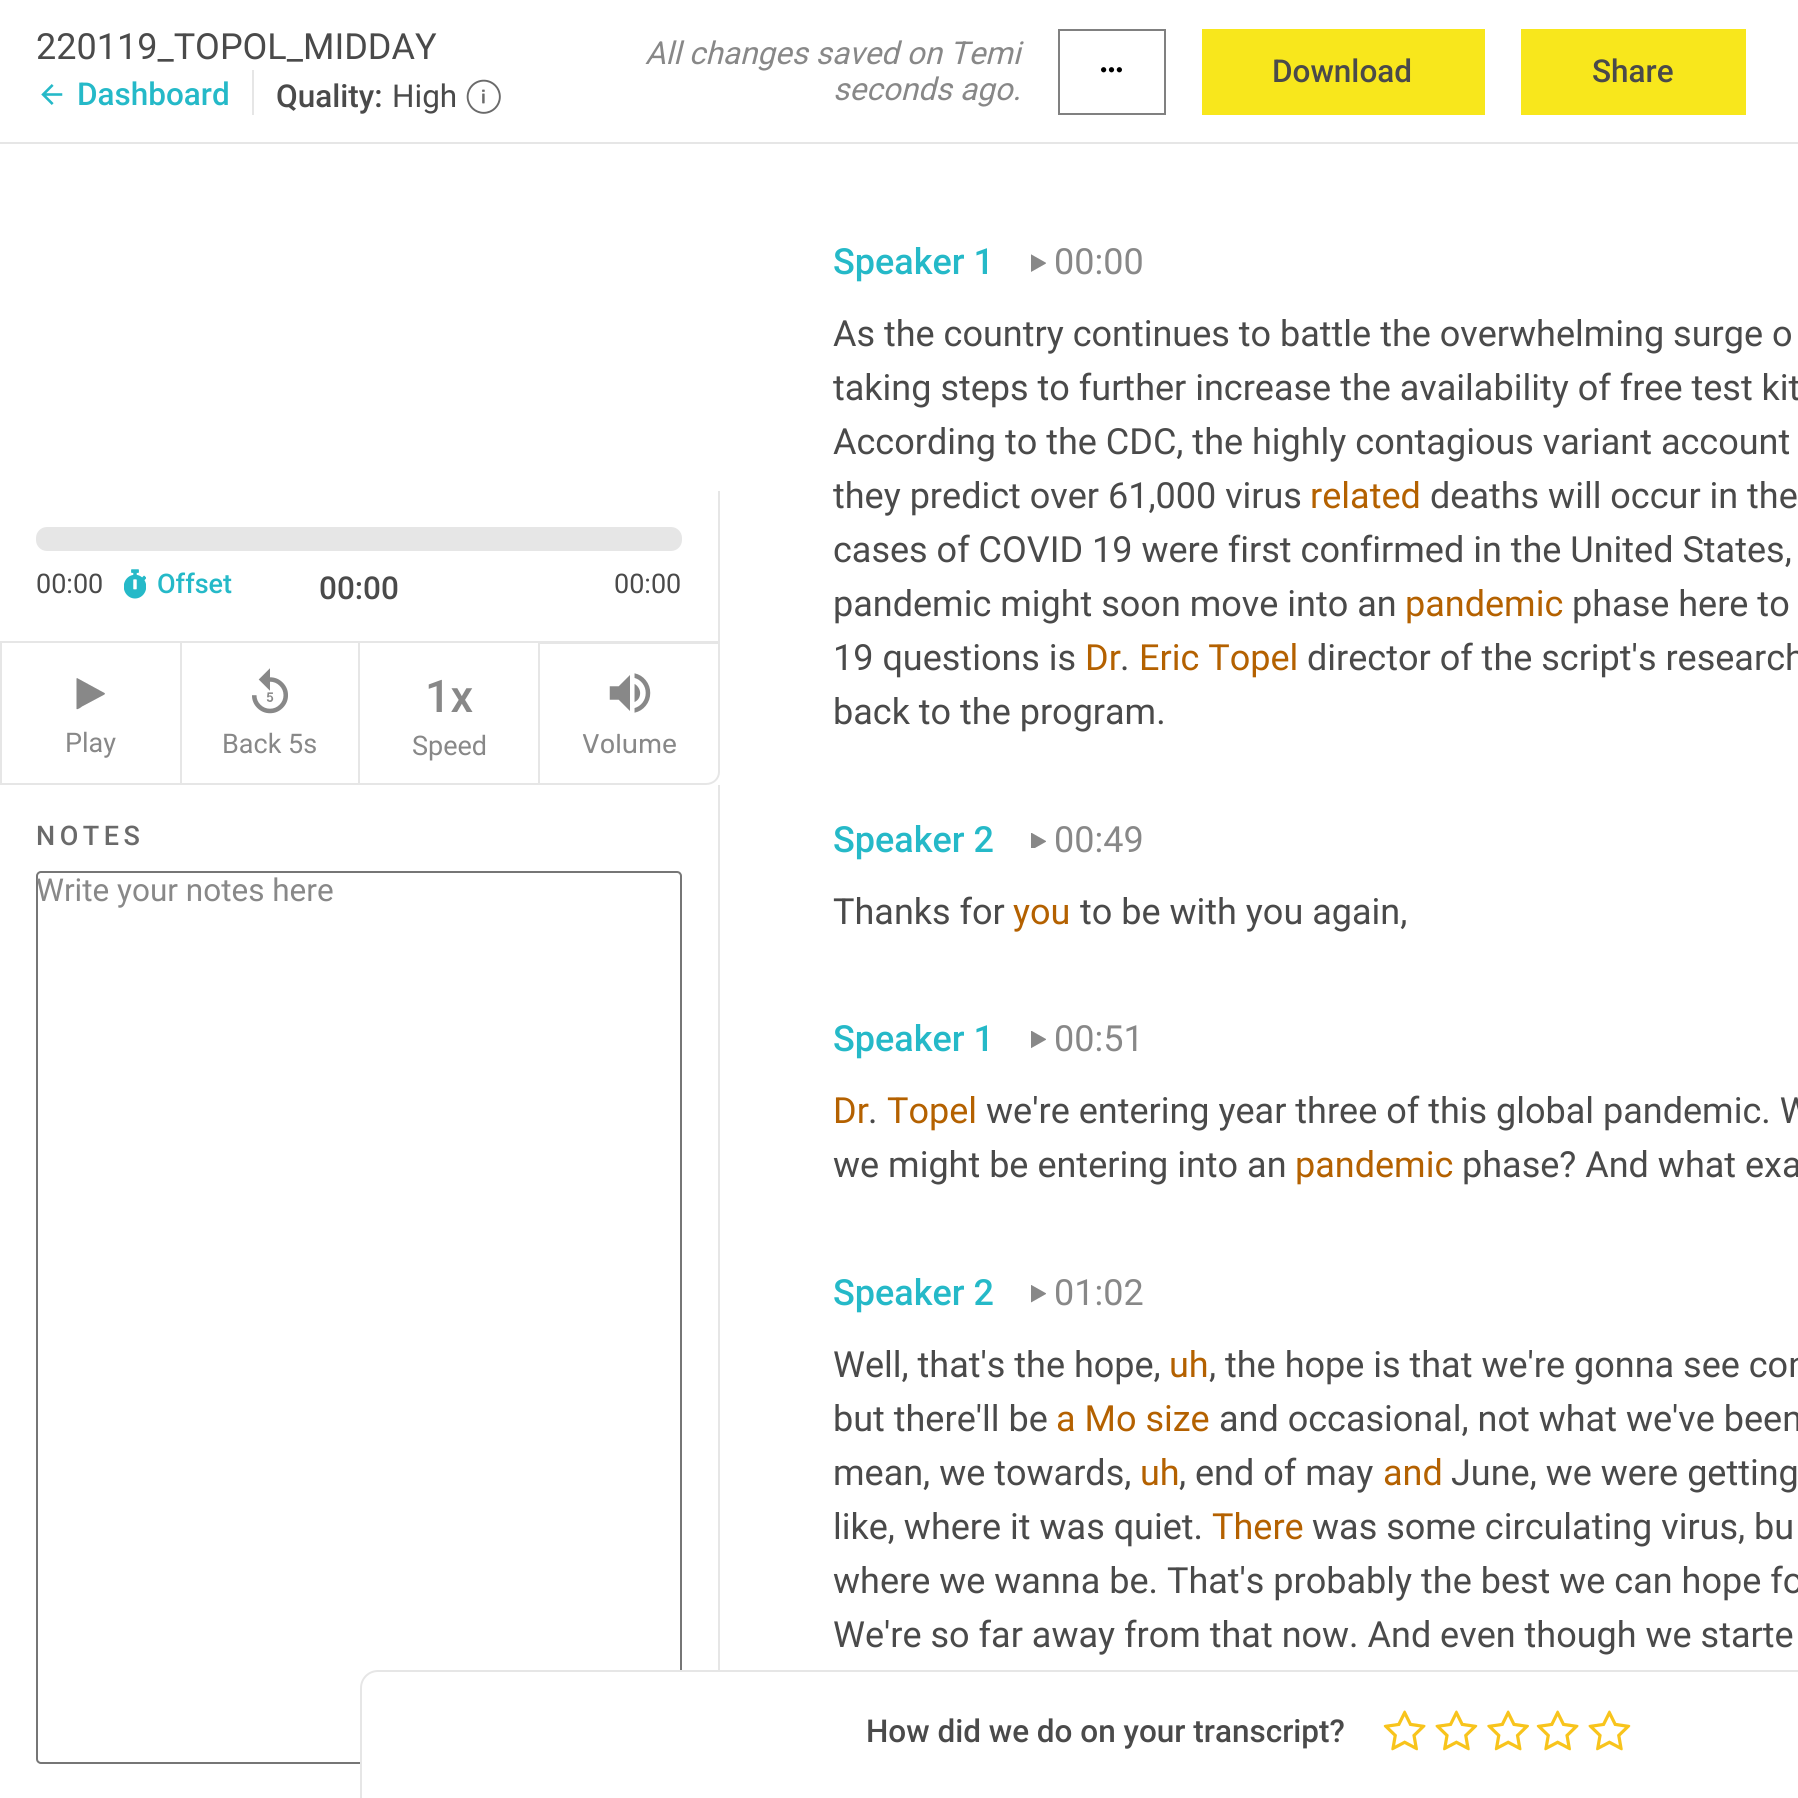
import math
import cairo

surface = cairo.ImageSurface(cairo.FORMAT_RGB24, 1798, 1798)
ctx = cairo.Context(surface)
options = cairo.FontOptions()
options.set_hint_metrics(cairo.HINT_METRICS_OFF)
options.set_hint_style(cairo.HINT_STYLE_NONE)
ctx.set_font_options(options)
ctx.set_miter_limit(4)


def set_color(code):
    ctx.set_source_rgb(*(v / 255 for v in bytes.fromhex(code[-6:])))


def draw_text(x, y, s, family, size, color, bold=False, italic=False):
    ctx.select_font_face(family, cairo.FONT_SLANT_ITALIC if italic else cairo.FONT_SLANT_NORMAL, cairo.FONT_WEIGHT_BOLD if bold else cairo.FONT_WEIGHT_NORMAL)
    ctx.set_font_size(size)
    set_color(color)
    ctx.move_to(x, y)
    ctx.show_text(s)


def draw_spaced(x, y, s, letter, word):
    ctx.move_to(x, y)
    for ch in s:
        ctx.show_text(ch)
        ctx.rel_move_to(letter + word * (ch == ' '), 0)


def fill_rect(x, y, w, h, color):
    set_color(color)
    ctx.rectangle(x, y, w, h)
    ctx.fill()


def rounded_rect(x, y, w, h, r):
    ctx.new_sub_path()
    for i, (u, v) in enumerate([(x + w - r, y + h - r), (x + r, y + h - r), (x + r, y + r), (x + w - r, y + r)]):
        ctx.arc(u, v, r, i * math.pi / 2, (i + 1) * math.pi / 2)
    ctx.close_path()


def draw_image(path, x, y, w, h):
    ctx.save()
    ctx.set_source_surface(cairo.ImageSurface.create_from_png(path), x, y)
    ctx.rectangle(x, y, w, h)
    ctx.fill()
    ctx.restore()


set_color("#ffffff")
ctx.paint()
fill_rect(0, 142, 1798, 2, "#e6e6e6")
draw_text(36, 59, "220119_TOPOL_MIDDAY", "Roboto", 36, "#4a4a4a")
draw_image("assets/img1.png", 41, 84, 22, 21)
draw_text(77, 105, "Dashboard", "Roboto Medium", 31.5, "#25b9c8")
fill_rect(252, 70, 2, 45, "#e6e6e6")
draw_text(276, 107, "Quality:", "Roboto Medium", 31.5, "#4a4a4a")
draw_text(392, 107, "High", "Roboto", 31.5, "#4a4a4a")
draw_image("assets/img2.png", 466, 79, 35, 35)
draw_text(645, 64, "All changes saved on Temi", "Roboto", 31.5, "#888888", italic=True)
draw_text(833, 100, "seconds ago.", "Roboto", 31.5, "#888888", italic=True)
ctx.rectangle(1059, 30, 106, 84)
set_color("#808080")
ctx.stroke()
draw_image("assets/img3.png", 1101, 67, 21, 6)
fill_rect(1202, 29, 283, 86, "#f8e71c")
draw_text(1272, 82, "Download", "Roboto Medium", 31.5, "#4a4a4a")
fill_rect(1521, 29, 225, 86, "#f8e71c")
draw_text(1592, 82, "Share", "Roboto Medium", 31.5, "#4a4a4a")
fill_rect(718, 491, 2, 150, "#e6e6e6")
rounded_rect(36, 527, 646, 24, 11)
ctx.fill()
draw_text(36, 593, "00:00", "Roboto", 27, "#4a4a4a")
draw_image("assets/img4.png", 124, 569, 22, 30)
draw_text(157, 593, "Offset", "Roboto Medium", 27, "#25b9c8")
draw_text(319, 599, "00:00", "Roboto Medium", 31.5, "#4a4a4a")
draw_text(614, 593, "00:00", "Roboto", 27, "#4a4a4a")
ctx.rectangle(1, 642, 180, 142)
set_color("#e6e6e6")
ctx.stroke()
set_color("#888888")
ctx.new_path()
ctx.move_to(104.5, 694.5)
ctx.line_to(82, 706.5)
ctx.curve_to(81.5, 707, 77.5, 710, 76.5, 709)
ctx.line_to(76.5, 678.5)
ctx.line_to(77, 678)
ctx.line_to(104.5, 693)
ctx.line_to(105, 693.5)
ctx.close_path()
ctx.fill()
draw_text(65, 752, "Play", "Roboto", 27, "#888888")
fill_rect(182, 641, 358, 2, "#e6e6e6")
fill_rect(358, 641, 2, 144, "#e6e6e6")
fill_rect(182, 783, 178, 2, "#e6e6e6")
draw_image("assets/img5.png", 252, 668, 36, 46)
draw_text(222, 753, "Back 5s", "Roboto", 27, "#888888")
fill_rect(538, 641, 2, 144, "#e6e6e6")
fill_rect(360, 783, 180, 2, "#e6e6e6")
draw_text(425, 712, "1x", "Roboto Medium", 45, "#888888")
draw_text(412, 755, "Speed", "Roboto", 27, "#888888")
set_color("#e6e6e6")
ctx.set_fill_rule(cairo.FILL_RULE_EVEN_ODD)
ctx.new_path()
ctx.move_to(540, 641)
ctx.line_to(720, 641)
ctx.line_to(720, 772)
ctx.curve_to(720, 779, 714, 785, 706, 785)
ctx.line_to(540, 785)
ctx.close_path()
ctx.move_to(540, 644)
ctx.line_to(718, 644)
ctx.line_to(718, 772)
ctx.curve_to(718, 778, 713, 783, 706, 783)
ctx.line_to(540, 783)
ctx.close_path()
ctx.fill()
draw_image("assets/img6.png", 609, 673, 42, 40)
draw_text(582, 753, "Volume", "Rubik", 27, "#888888")
fill_rect(718, 785, 2, 885, "#e6e6e6")
ctx.select_font_face("Roboto Medium")
set_color("#6a6a6a")
draw_spaced(36, 845, "NOTES", 4.5, 0)
rounded_rect(37, 872, 644, 891, 4)
set_color("#767676")
ctx.stroke()
draw_text(36, 901, "Write your notes here", "Roboto", 31.5, "#888888")
draw_text(833, 274, "Speaker 1", "Roboto Medium", 36, "#25b9c8")
draw_image("assets/img7.png", 1031, 254, 15, 18)
draw_text(1054, 274, "00:00", "Roboto", 36, "#888888")
draw_text(833, 346, "As the country continues to battle the overwhelming surge o", "Roboto", 36, "#4a4a4a")
draw_text(833, 400, "taking steps to further increase the availability of free test kit", "Roboto", 36, "#4a4a4a")
draw_text(833, 454, "According to the CDC, the highly contagious variant account", "Roboto", 36, "#4a4a4a")
draw_text(833, 508, "they predict over 61,000 virus", "Roboto", 36, "#4a4a4a")
draw_text(1310, 508, "related", "Roboto", 36, "#b46100")
draw_text(1430, 508, "deaths will occur in the", "Roboto", 36, "#4a4a4a")
draw_text(833, 562, "cases of COVID 19 were first confirmed in the United States,", "Roboto", 36, "#4a4a4a")
draw_text(833, 616, "pandemic might soon move into an", "Roboto", 36, "#4a4a4a")
draw_text(1405, 616, "pandemic", "Roboto", 36, "#b46100")
draw_text(1572, 616, "phase here to", "Roboto", 36, "#4a4a4a")
draw_text(833, 670, "19 questions is", "Roboto", 36, "#4a4a4a")
draw_text(1085, 670, "Dr", "Roboto", 36, "#b46100")
draw_text(1120, 670, ".", "Roboto", 36, "#4a4a4a")
draw_text(1139, 670, "Eric Topel", "Roboto", 36, "#b46100")
draw_text(1307, 670, "director of the script's research", "Roboto", 36, "#4a4a4a")
draw_text(833, 724, "back to the program.", "Roboto", 36, "#4a4a4a")
draw_text(833, 852, "Speaker 2", "Roboto Medium", 36, "#25b9c8")
draw_image("assets/img8.png", 1031, 833, 15, 15)
draw_text(1054, 852, "00:49", "Roboto", 36, "#888888")
draw_text(833, 924, "Thanks for", "Roboto", 36, "#4a4a4a")
draw_text(1013, 924, "you", "Roboto", 36, "#b46100")
draw_text(1080, 924, "to be with you again,", "Roboto", 36, "#4a4a4a")
draw_text(833, 1051, "Speaker 1", "Roboto Medium", 36, "#25b9c8")
draw_image("assets/img9.png", 1031, 1031, 15, 18)
draw_text(1054, 1051, "00:51", "Roboto", 36, "#888888")
draw_text(833, 1123, "Dr", "Roboto", 36, "#b46100")
draw_text(868, 1123, ".", "Roboto", 36, "#4a4a4a")
draw_text(887, 1123, "Topel", "Roboto", 36, "#b46100")
draw_text(986, 1123, "we're entering year three of this global pandemic. W", "Roboto", 36, "#4a4a4a")
draw_text(833, 1177, "we might be entering into an", "Roboto", 36, "#4a4a4a")
draw_text(1295, 1177, "pandemic", "Roboto", 36, "#b46100")
draw_text(1462, 1177, "phase? And what exa", "Roboto", 36, "#4a4a4a")
draw_text(833, 1305, "Speaker 2", "Roboto Medium", 36, "#25b9c8")
draw_image("assets/img10.png", 1031, 1285, 15, 18)
draw_text(1054, 1305, "01:02", "Roboto", 36, "#888888")
draw_text(833, 1377, "Well, that's the hope,", "Roboto", 36, "#4a4a4a")
draw_text(1169, 1377, "uh", "Roboto", 36, "#b46100")
draw_text(1209, 1377, ", the hope is that we're gonna see con", "Roboto", 36, "#4a4a4a")
draw_text(833, 1431, "but there'll be", "Roboto", 36, "#4a4a4a")
draw_text(1056, 1431, "a Mo size", "Roboto", 36, "#b46100")
draw_text(1219, 1431, "and occasional, not what we've been", "Roboto", 36, "#4a4a4a")
draw_text(833, 1485, "mean, we towards,", "Roboto", 36, "#4a4a4a")
draw_text(1140, 1485, "uh", "Roboto", 36, "#b46100")
draw_text(1179, 1485, ", end of may", "Roboto", 36, "#4a4a4a")
draw_text(1383, 1485, "and", "Roboto", 36, "#b46100")
draw_text(1451, 1485, "June, we were getting", "Roboto", 36, "#4a4a4a")
draw_text(833, 1539, "like, where it was quiet.", "Roboto", 36, "#4a4a4a")
draw_text(1212, 1539, "There", "Roboto", 36, "#b46100")
draw_text(1312, 1539, "was some circulating virus, bu", "Roboto", 36, "#4a4a4a")
draw_text(833, 1593, "where we wanna be. That's probably the best we can hope fo", "Roboto", 36, "#4a4a4a")
draw_text(833, 1647, "We're so far away from that now. And even though we starte", "Roboto", 36, "#4a4a4a")
set_color("#ffffff")
ctx.new_path()
ctx.move_to(378, 1672)
ctx.line_to(1798, 1672)
ctx.curve_to(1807, 1672, 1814, 1679, 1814, 1688)
ctx.line_to(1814, 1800)
ctx.line_to(362, 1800)
ctx.line_to(362, 1688)
ctx.curve_to(362, 1679, 369, 1672, 378, 1672)
ctx.close_path()
ctx.fill()
set_color("#e6e6e6")
ctx.new_path()
ctx.move_to(378, 1670)
ctx.line_to(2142, 1670)
ctx.curve_to(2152, 1670, 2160, 1678, 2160, 1688)
ctx.line_to(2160, 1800)
ctx.line_to(360, 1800)
ctx.line_to(360, 1688)
ctx.curve_to(360, 1678, 368, 1670, 378, 1670)
ctx.close_path()
ctx.move_to(378, 1672)
ctx.line_to(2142, 1672)
ctx.curve_to(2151, 1672, 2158, 1679, 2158, 1688)
ctx.line_to(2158, 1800)
ctx.line_to(362, 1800)
ctx.line_to(362, 1688)
ctx.curve_to(362, 1679, 369, 1672, 378, 1672)
ctx.close_path()
ctx.fill()
draw_text(866, 1742, "How did we do on your transcript?", "Roboto Medium", 31.5, "#4a4a4a")
draw_image("assets/img11.png", 1383, 1710, 43, 41)
draw_image("assets/img12.png", 1435, 1710, 43, 41)
draw_image("assets/img13.png", 1487, 1710, 42, 41)
draw_image("assets/img11.png", 1536, 1710, 43, 41)
draw_image("assets/img12.png", 1588, 1710, 43, 41)
surface.write_to_png("output.png")
